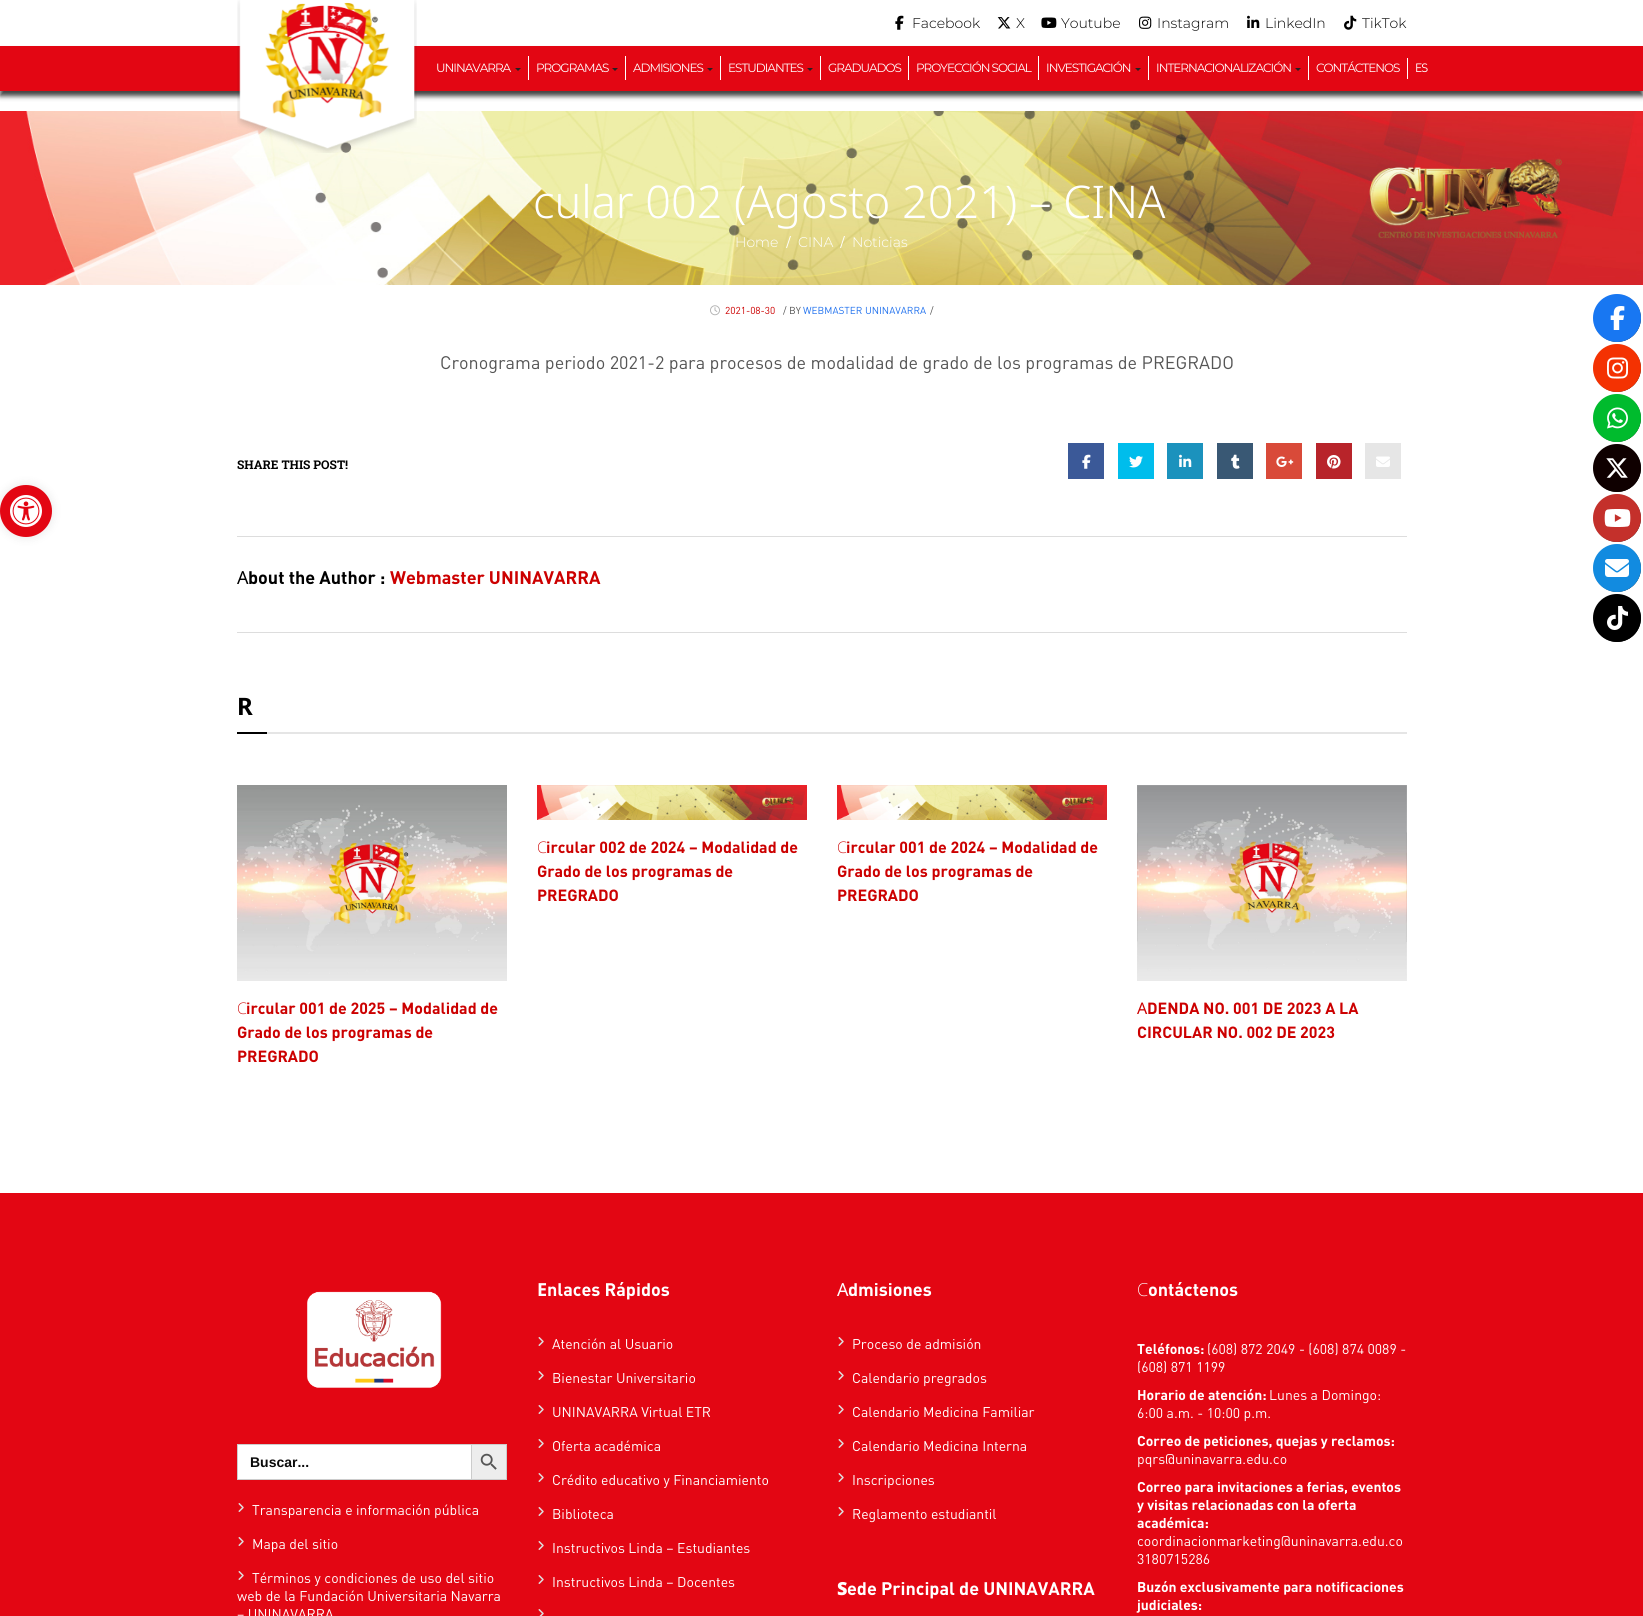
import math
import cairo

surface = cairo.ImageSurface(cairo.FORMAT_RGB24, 1643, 1616)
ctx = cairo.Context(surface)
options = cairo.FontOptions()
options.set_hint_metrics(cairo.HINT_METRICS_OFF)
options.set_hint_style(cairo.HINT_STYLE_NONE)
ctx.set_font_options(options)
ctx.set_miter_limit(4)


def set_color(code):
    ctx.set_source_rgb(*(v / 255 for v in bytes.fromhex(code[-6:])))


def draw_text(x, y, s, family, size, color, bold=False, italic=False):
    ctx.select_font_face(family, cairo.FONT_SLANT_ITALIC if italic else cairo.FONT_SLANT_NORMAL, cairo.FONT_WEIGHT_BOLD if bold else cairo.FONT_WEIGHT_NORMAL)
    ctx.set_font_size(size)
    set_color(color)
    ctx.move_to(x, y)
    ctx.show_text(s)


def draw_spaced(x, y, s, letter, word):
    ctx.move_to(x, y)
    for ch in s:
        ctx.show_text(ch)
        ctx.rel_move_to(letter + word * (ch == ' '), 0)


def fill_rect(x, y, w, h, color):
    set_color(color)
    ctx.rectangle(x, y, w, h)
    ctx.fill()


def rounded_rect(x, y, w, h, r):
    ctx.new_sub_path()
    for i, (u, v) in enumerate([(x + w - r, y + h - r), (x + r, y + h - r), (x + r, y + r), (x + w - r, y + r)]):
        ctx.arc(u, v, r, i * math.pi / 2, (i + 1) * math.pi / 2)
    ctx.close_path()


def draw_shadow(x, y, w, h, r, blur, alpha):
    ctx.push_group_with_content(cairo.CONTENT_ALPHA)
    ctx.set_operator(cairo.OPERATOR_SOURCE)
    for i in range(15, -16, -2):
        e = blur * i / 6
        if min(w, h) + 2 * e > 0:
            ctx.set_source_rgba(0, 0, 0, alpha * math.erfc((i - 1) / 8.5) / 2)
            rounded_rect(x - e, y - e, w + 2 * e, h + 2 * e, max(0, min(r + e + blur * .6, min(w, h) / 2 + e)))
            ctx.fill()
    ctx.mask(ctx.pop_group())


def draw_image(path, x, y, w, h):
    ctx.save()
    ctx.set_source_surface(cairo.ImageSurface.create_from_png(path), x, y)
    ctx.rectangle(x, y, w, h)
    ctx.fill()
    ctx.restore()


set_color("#ffffff")
ctx.paint()
set_color("#000000")
draw_shadow(0, 485, 52, 52, 26, 5, 0.1)
set_color("#e30613")
ctx.arc(26, 511, 26, 0, 2 * math.pi)
ctx.fill()
draw_image("assets/img1.png", 10, 495, 32, 32)
draw_image("assets/img2.png", 895, 15, 9, 15)
draw_text(912, 28, "Facebook", "Montserrat Light", 14, "#000000")
draw_image("assets/img3.png", 997, 17, 14, 12)
draw_text(1016, 28, "X", "Montserrat Light", 14, "#000000")
draw_image("assets/img4.png", 1041, 17, 16, 11)
draw_text(1061, 28, "Youtube", "Montserrat Light", 14, "#000000")
draw_image("assets/img5.png", 1139, 16, 13, 13)
draw_text(1157, 28, "Instagram", "Montserrat Light", 14, "#000000")
draw_image("assets/img6.png", 1247, 15, 13, 13)
draw_text(1265, 28, "LinkedIn", "Montserrat Light", 14, "#000000")
draw_image("assets/img7.png", 1344, 15, 13, 15)
draw_text(1362, 28, "TikTok", "Montserrat Light", 14, "#000000")
set_color("#000000")
draw_shadow(0, 51, 1643, 45, 0, 2.5, 0.75)
fill_rect(0, 46, 1643, 45, "#e30613")
draw_image("assets/img9.png", 0, 111, 1643, 174)
draw_image("assets/img8.png", 237, 0, 180, 153)
ctx.select_font_face("Montserrat")
ctx.set_font_size(12)
set_color("#ffffff")
draw_spaced(436, 72, "UNINAVARRA", -1, 0)
set_color("#222222")
ctx.new_path()
ctx.move_to(515, 68)
ctx.line_to(521, 68)
ctx.line_to(518, 71)
ctx.close_path()
ctx.fill()
fill_rect(528, 56, 1, 24, "#ffffff")
draw_spaced(536, 72, "PROGRAMAS", -1, 0)
set_color("#222222")
ctx.new_path()
ctx.move_to(612, 68)
ctx.line_to(618, 68)
ctx.line_to(615, 71)
ctx.close_path()
ctx.fill()
fill_rect(625, 56, 1, 24, "#ffffff")
draw_spaced(633, 72, "ADMISIONES", -1, 0)
set_color("#222222")
ctx.new_path()
ctx.move_to(707, 68)
ctx.line_to(713, 68)
ctx.line_to(710, 71)
ctx.close_path()
ctx.fill()
fill_rect(720, 56, 1, 24, "#ffffff")
draw_spaced(728, 72, "ESTUDIANTES", -1, 0)
set_color("#222222")
ctx.new_path()
ctx.move_to(807, 68)
ctx.line_to(813, 68)
ctx.line_to(810, 71)
ctx.close_path()
ctx.fill()
fill_rect(820, 56, 1, 24, "#ffffff")
draw_spaced(828, 72, "GRADUADOS", -1, 0)
fill_rect(908, 56, 1, 24, "#ffffff")
draw_spaced(916, 72, "PROYECCIÓN SOCIAL", -1, 0)
fill_rect(1038, 56, 1, 24, "#ffffff")
draw_spaced(1046, 72, "INVESTIGACIÓN", -1, 0)
set_color("#222222")
ctx.new_path()
ctx.move_to(1135, 68)
ctx.line_to(1141, 68)
ctx.line_to(1138, 71)
ctx.close_path()
ctx.fill()
fill_rect(1148, 56, 1, 24, "#ffffff")
draw_spaced(1156, 72, "INTERNACIONALIZACIÓN", -1, 0)
set_color("#222222")
ctx.new_path()
ctx.move_to(1295, 68)
ctx.line_to(1301, 68)
ctx.line_to(1298, 71)
ctx.close_path()
ctx.fill()
fill_rect(1308, 56, 1, 24, "#ffffff")
draw_spaced(1316, 72, "CONTÁCTENOS", -1, 0)
fill_rect(1407, 58, 1, 21, "#ffffff")
ctx.select_font_face("DIN")
draw_spaced(1415, 72, "ES", -1, 0)
draw_text(533, 218, "cular 002 (Agosto 2021) – CINA", "Noto Sans Light", 45, "#ffffff")
draw_text(735, 247, "Home", "Montserrat Light", 14, "#ffffff")
draw_text(786, 247, "/", "DIN", 14, "#ffffff")
draw_text(798, 247, "CINA", "Montserrat Light", 14, "#ffffff")
draw_text(840, 247, "/", "DIN", 14, "#ffffff")
draw_text(852, 247, "Noticias", "Montserrat Light", 14, "#ffffff")
draw_image("assets/img10.png", 710, 305, 10, 11)
draw_text(725, 314, "2021-08-30", "DIN", 10, "#cc0000")
draw_text(783, 314, "/ BY", "DIN", 10, "#555555")
draw_text(803, 314, "WEBMASTER UNINAVARRA", "DIN", 10, "#2071ee")
draw_text(930, 314, "/", "DIN", 10, "#555555")
draw_text(440, 369, "Cronograma periodo 2021-2 para procesos de modalidad de grado de los programas de PREGRADO", "DIN", 18, "#555555")
draw_text(237, 469, "SHARE THIS POST!", "Roboto Slab", 12, "#000000", bold=True)
fill_rect(1068, 443, 36, 36, "#3b5998")
draw_image("assets/img11.png", 1082, 454, 9, 15)
fill_rect(1118, 443, 36, 36, "#00bdec")
draw_image("assets/img12.png", 1129, 456, 14, 12)
fill_rect(1167, 443, 36, 36, "#1b92bd")
draw_image("assets/img13.png", 1179, 454, 13, 13)
fill_rect(1217, 443, 36, 36, "#395874")
draw_image("assets/img14.png", 1231, 454, 9, 15)
fill_rect(1266, 443, 36, 36, "#d94a39")
draw_image("assets/img15.png", 1276, 456, 18, 11)
fill_rect(1316, 443, 36, 36, "#b8242a")
draw_image("assets/img16.png", 1327, 455, 14, 14)
fill_rect(1365, 443, 36, 36, "#e6e6e6")
draw_image("assets/img17.png", 1376, 456, 14, 11)
fill_rect(237, 536, 1170, 1, "#dddddd")
draw_text(237, 584, "A", "Noto Sans", 18, "#000000")
draw_text(248, 584, "bout the Author :", "DIN", 18, "#000000", bold=True)
draw_text(390, 584, "Webmaster UNINAVARRA", "DIN", 18, "#cc0000", bold=True)
fill_rect(237, 632, 1170, 1, "#dddddd")
ctx.select_font_face("Noto Sans", cairo.FONT_SLANT_NORMAL, cairo.FONT_WEIGHT_BOLD)
ctx.set_font_size(24)
set_color("#000000")
draw_spaced(237, 715, "R", -2, 0)
fill_rect(237, 732, 30, 2, "#000000")
fill_rect(267, 732, 1140, 2, "#e5e5e5")
draw_image("assets/img18.png", 537, 785, 270, 35)
draw_text(537, 853, "C", "Noto Sans ExtraLight", 16, "#cc0000")
draw_text(546, 853, "ircular 002 de 2024 – Modalidad de", "DIN", 16, "#cc0000", bold=True)
draw_text(537, 877, "Grado de los programas de", "DIN", 16, "#cc0000", bold=True)
draw_text(537, 901, "PREGRADO", "DIN", 16, "#cc0000", bold=True)
draw_image("assets/img19.png", 837, 785, 270, 35)
draw_text(837, 853, "C", "Noto Sans ExtraLight", 16, "#cc0000")
draw_text(846, 853, "ircular 001 de 2024 – Modalidad de", "DIN", 16, "#cc0000", bold=True)
draw_text(837, 877, "Grado de los programas de", "DIN", 16, "#cc0000", bold=True)
draw_text(837, 901, "PREGRADO", "DIN", 16, "#cc0000", bold=True)
draw_image("assets/img20.png", 237, 785, 270, 196)
draw_text(237, 1014, "C", "Noto Sans ExtraLight", 16, "#cc0000")
draw_text(246, 1014, "ircular 001 de 2025 – Modalidad de", "DIN", 16, "#cc0000", bold=True)
draw_text(237, 1038, "Grado de los programas de", "DIN", 16, "#cc0000", bold=True)
draw_text(237, 1062, "PREGRADO", "DIN", 16, "#cc0000", bold=True)
draw_image("assets/img21.png", 1137, 785, 270, 196)
draw_text(1137, 1014, "A", "Noto Sans", 16, "#cc0000")
draw_text(1147, 1014, "DENDA NO. 001 DE 2023 A LA", "DIN", 16, "#cc0000", bold=True)
draw_text(1137, 1038, "CIRCULAR NO. 002 DE 2023", "DIN", 16, "#cc0000", bold=True)
fill_rect(0, 1193, 1643, 423, "#e30613")
draw_image("assets/img22.png", 307, 1291, 135, 97)
fill_rect(238, 1445, 233, 34, "#ffffff")
fill_rect(237, 1444, 234, 1, "#cccccc")
fill_rect(237, 1479, 234, 1, "#cccccc")
fill_rect(237, 1444, 1, 36, "#cccccc")
draw_text(250, 1467, "Buscar...", "Liberation Sans", 14, "#0a0a0a", bold=True)
set_color("#ededed")
ctx.rectangle(471.5, 1444.5, 35, 35)
ctx.fill_preserve()
set_color("#cccccc")
ctx.set_line_width(1)
ctx.stroke()
draw_image("assets/img23.png", 480, 1453, 17, 17)
draw_image("assets/img24.png", 238, 1503, 6, 9)
draw_text(252, 1515, "Transparencia e información pública", "DIN", 14, "#ffffff")
draw_image("assets/img24.png", 238, 1537, 6, 9)
draw_text(252, 1549, "Mapa del sitio", "DIN", 14, "#ffffff")
draw_image("assets/img24.png", 238, 1571, 6, 9)
draw_text(252, 1583, "Términos y condiciones de uso del sitio", "DIN", 14, "#ffffff")
draw_text(237, 1601, "web de la Fundación Universitaria Navarra", "DIN", 14, "#ffffff")
draw_text(237, 1619, "– UNINAVARRA", "DIN", 14, "#ffffff")
draw_text(537, 1296, "E", "Noto Sans", 18, "#ffffff", bold=True)
draw_text(547, 1296, "nlaces Rápidos", "DIN", 18, "#ffffff", bold=True)
draw_image("assets/img24.png", 538, 1337, 6, 9)
draw_text(552, 1349, "Atención al Usuario", "DIN", 14, "#ffffff")
draw_image("assets/img24.png", 538, 1371, 6, 9)
draw_text(552, 1383, "Bienestar Universitario", "DIN", 14, "#ffffff")
draw_image("assets/img24.png", 538, 1405, 6, 9)
draw_text(552, 1417, "UNINAVARRA Virtual ETR", "DIN", 14, "#ffffff")
draw_image("assets/img24.png", 538, 1439, 6, 9)
draw_text(552, 1451, "Oferta académica", "DIN", 14, "#ffffff")
draw_image("assets/img24.png", 538, 1473, 6, 9)
draw_text(552, 1485, "Crédito educativo y Financiamiento", "DIN", 14, "#ffffff")
draw_image("assets/img24.png", 538, 1507, 6, 9)
draw_text(552, 1519, "Biblioteca", "DIN", 14, "#ffffff")
draw_image("assets/img24.png", 538, 1541, 6, 9)
draw_text(552, 1553, "Instructivos Linda – Estudiantes", "DIN", 14, "#ffffff")
draw_image("assets/img24.png", 538, 1575, 6, 9)
draw_text(552, 1587, "Instructivos Linda – Docentes", "DIN", 14, "#ffffff")
draw_image("assets/img25.png", 538, 1609, 6, 7)
draw_text(837, 1296, "A", "Noto Sans", 18, "#ffffff")
draw_text(848, 1296, "dmisiones", "DIN", 18, "#ffffff", bold=True)
draw_image("assets/img24.png", 838, 1337, 6, 9)
draw_text(852, 1349, "Proceso de admisión", "DIN", 14, "#ffffff")
draw_image("assets/img24.png", 838, 1371, 6, 9)
draw_text(852, 1383, "Calendario pregrados", "DIN", 14, "#ffffff")
draw_image("assets/img24.png", 838, 1405, 6, 9)
draw_text(852, 1417, "Calendario Medicina Familiar", "DIN", 14, "#ffffff")
draw_image("assets/img24.png", 838, 1439, 6, 9)
draw_text(852, 1451, "Calendario Medicina Interna", "DIN", 14, "#ffffff")
draw_image("assets/img24.png", 838, 1473, 6, 9)
draw_text(852, 1485, "Inscripciones", "DIN", 14, "#ffffff")
draw_image("assets/img24.png", 838, 1507, 6, 9)
draw_text(852, 1519, "Reglamento estudiantil", "DIN", 14, "#ffffff")
draw_text(837, 1595, "S", "Noto Sans Black", 18, "#ffffff")
draw_text(847, 1595, "ede Principal de UNINAVARRA", "DIN", 18, "#ffffff", bold=True)
draw_text(1137, 1296, "C", "Noto Sans ExtraLight", 18, "#ffffff")
draw_text(1148, 1296, "ontáctenos", "DIN", 18, "#ffffff", bold=True)
draw_text(1137, 1354, "Teléfonos:", "DIN", 14, "#ffffff", bold=True)
draw_text(1207, 1354, "(608) 872 2049 - (608) 874 0089 -", "DIN", 14, "#ffffff")
draw_text(1137, 1372, "(608) 871 1199", "DIN", 14, "#ffffff")
draw_text(1137, 1400, "Horario de atención:", "DIN", 14, "#ffffff", bold=True)
draw_text(1269, 1400, "Lunes a Domingo:", "DIN", 14, "#ffffff")
draw_text(1137, 1418, "6:00 a.m. - 10:00 p.m.", "DIN", 14, "#ffffff")
draw_text(1137, 1446, "Correo de peticiones, quejas y reclamos:", "DIN", 14, "#ffffff", bold=True)
draw_text(1137, 1464, "pqrs@uninavarra.edu.co", "DIN", 14, "#ffffff")
draw_text(1137, 1492, "Correo para invitaciones a ferias, eventos", "DIN", 14, "#ffffff", bold=True)
draw_text(1137, 1510, "y visitas relacionadas con la oferta", "DIN", 14, "#ffffff", bold=True)
draw_text(1137, 1528, "académica:", "DIN", 14, "#ffffff", bold=True)
draw_text(1137, 1546, "coordinacionmarketing@uninavarra.edu.co", "DIN", 14, "#ffffff")
draw_text(1137, 1564, "3180715286", "DIN", 14, "#ffffff")
draw_text(1137, 1592, "Buzón exclusivamente para notificaciones", "DIN", 14, "#ffffff", bold=True)
draw_text(1137, 1610, "judiciales:", "DIN", 14, "#ffffff", bold=True)
ctx.save()
rounded_rect(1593, 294, 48, 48, 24)
ctx.clip()
set_color("#000000")
draw_shadow(1600, 301, 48, 48, 24, 5, 1)
ctx.restore()
set_color("#1877f2")
ctx.arc(1617, 318, 24, 0, 2 * math.pi)
ctx.fill()
draw_image("assets/img26.png", 1610, 306, 15, 24)
ctx.save()
rounded_rect(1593, 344, 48, 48, 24)
ctx.clip()
set_color("#000000")
draw_shadow(1600, 351, 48, 48, 24, 5, 1)
ctx.restore()
set_color("#f43202")
ctx.arc(1617, 368, 24, 0, 2 * math.pi)
ctx.fill()
draw_image("assets/img27.png", 1607, 357, 21, 22)
ctx.save()
rounded_rect(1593, 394, 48, 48, 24)
ctx.clip()
set_color("#000000")
draw_shadow(1600, 401, 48, 48, 24, 5, 1)
ctx.restore()
set_color("#00bb2d")
ctx.arc(1617, 418, 24, 0, 2 * math.pi)
ctx.fill()
draw_image("assets/img28.png", 1607, 407, 21, 22)
ctx.save()
rounded_rect(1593, 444, 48, 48, 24)
ctx.clip()
set_color("#000000")
draw_shadow(1600, 451, 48, 48, 24, 5, 1)
ctx.restore()
set_color("#0f0000")
ctx.arc(1617, 468, 24, 0, 2 * math.pi)
ctx.fill()
draw_image("assets/img29.png", 1606, 458, 22, 20)
ctx.save()
rounded_rect(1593, 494, 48, 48, 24)
ctx.clip()
set_color("#000000")
draw_shadow(1600, 501, 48, 48, 24, 5, 1)
ctx.restore()
set_color("#c4302b")
ctx.arc(1617, 518, 24, 0, 2 * math.pi)
ctx.fill()
draw_image("assets/img30.png", 1604, 509, 27, 18)
ctx.save()
rounded_rect(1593, 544, 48, 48, 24)
ctx.clip()
set_color("#000000")
draw_shadow(1600, 551, 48, 48, 24, 5, 1)
ctx.restore()
set_color("#128be0")
ctx.arc(1617, 568, 24, 0, 2 * math.pi)
ctx.fill()
draw_image("assets/img31.png", 1605, 559, 24, 18)
ctx.save()
rounded_rect(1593, 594, 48, 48, 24)
ctx.clip()
set_color("#000000")
draw_shadow(1600, 601, 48, 48, 24, 5, 1)
ctx.restore()
set_color("#000000")
ctx.arc(1617, 618, 24, 0, 2 * math.pi)
ctx.fill()
draw_image("assets/img32.png", 1607, 606, 21, 24)
surface.write_to_png("output.png")
